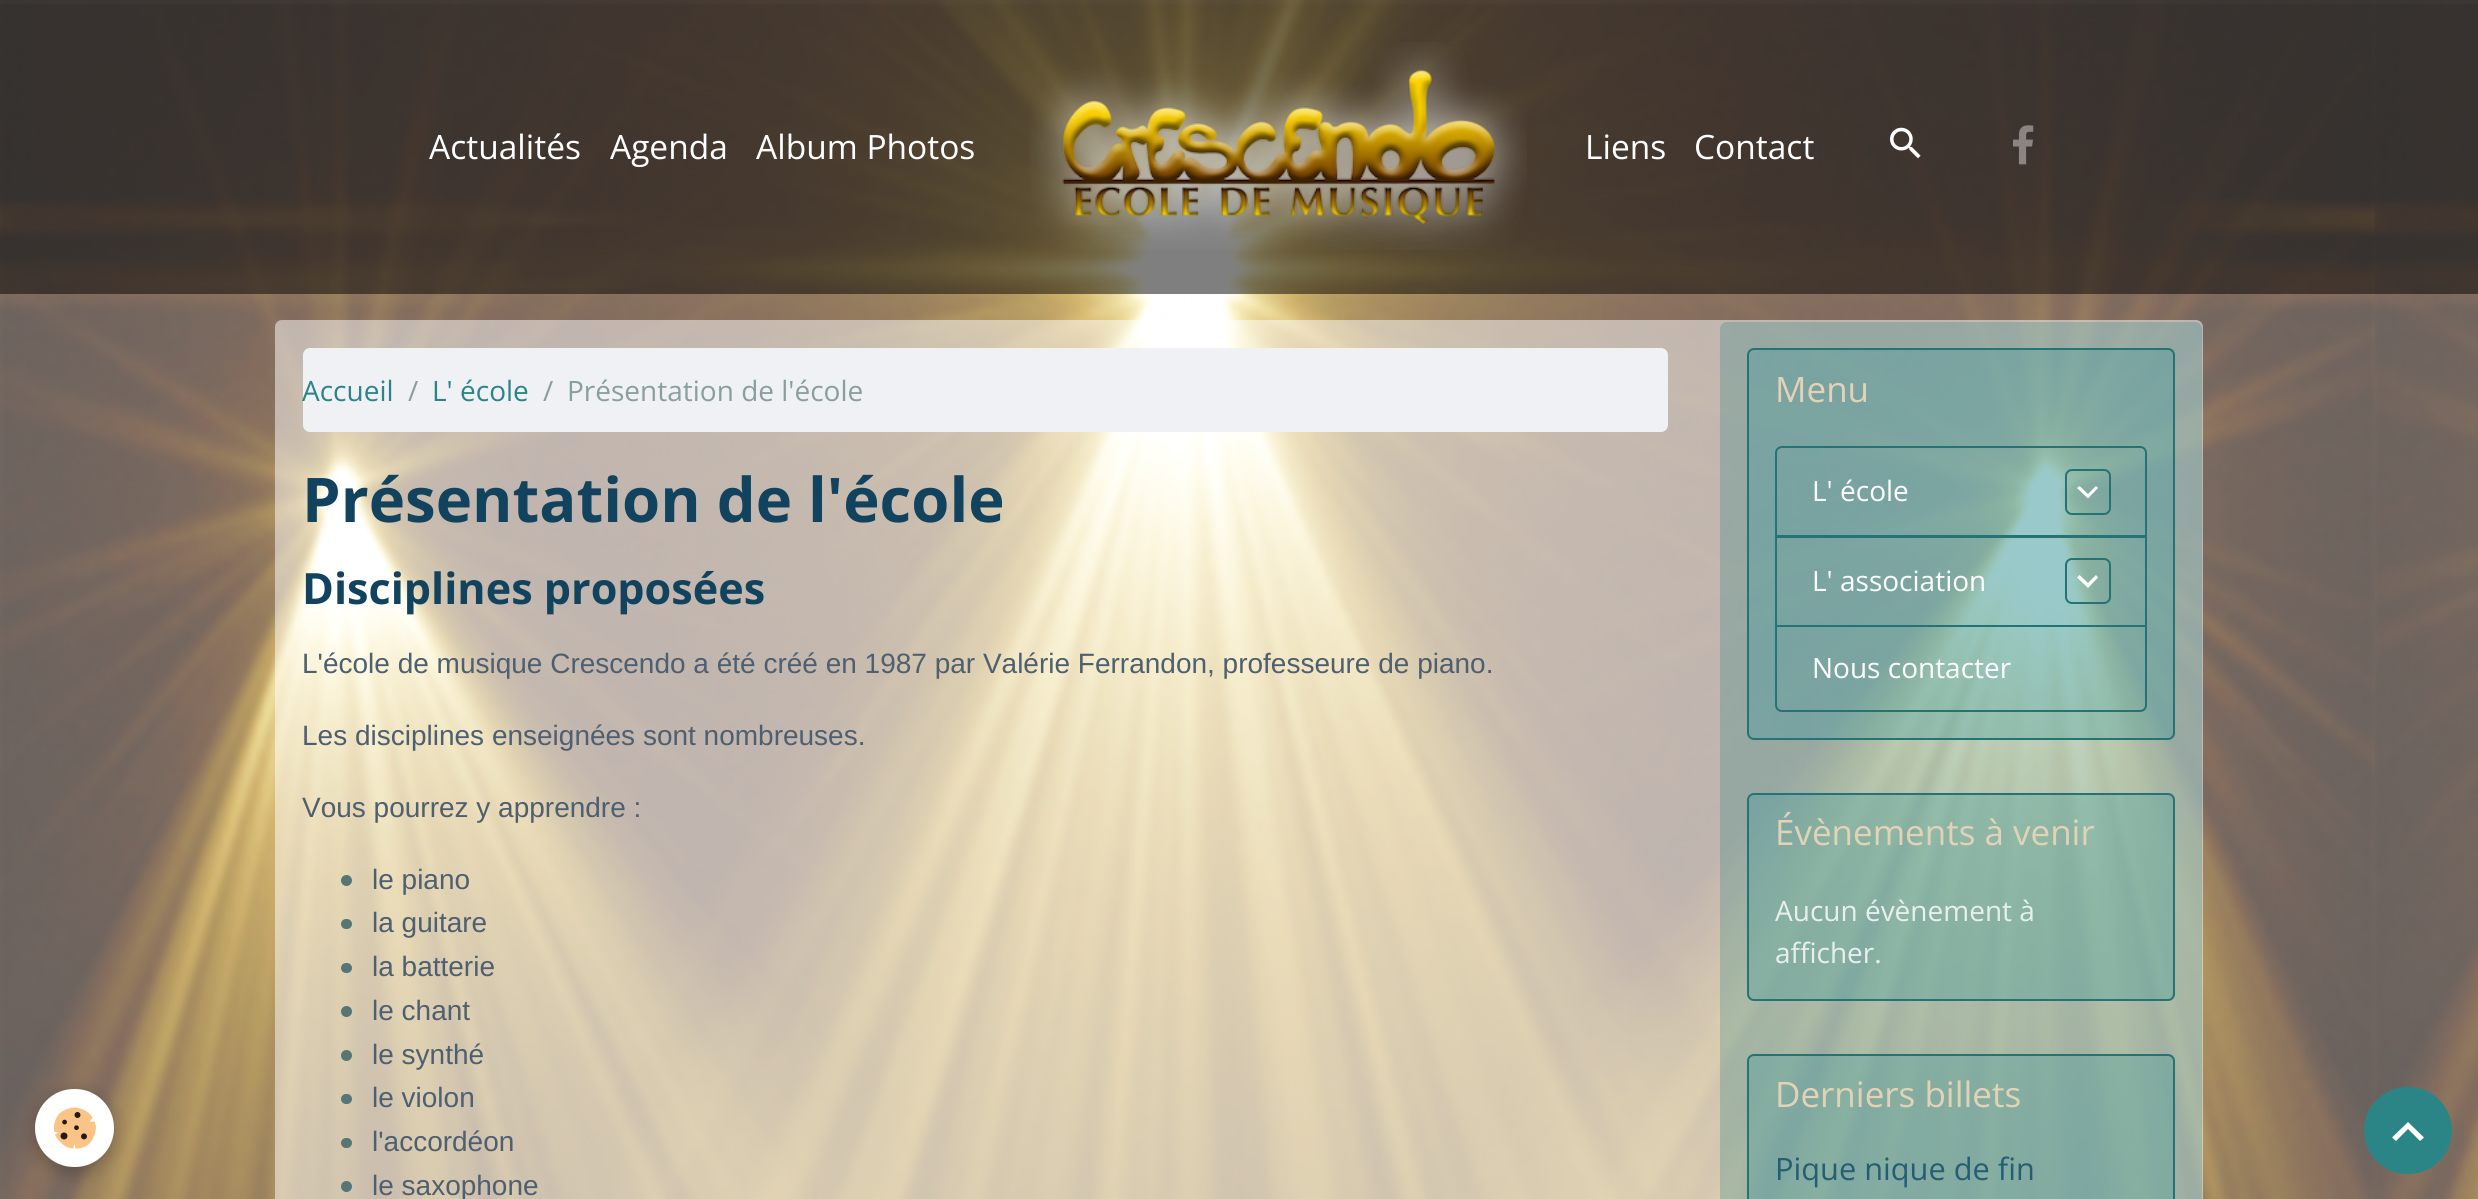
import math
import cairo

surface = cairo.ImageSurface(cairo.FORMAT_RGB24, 2478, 1199)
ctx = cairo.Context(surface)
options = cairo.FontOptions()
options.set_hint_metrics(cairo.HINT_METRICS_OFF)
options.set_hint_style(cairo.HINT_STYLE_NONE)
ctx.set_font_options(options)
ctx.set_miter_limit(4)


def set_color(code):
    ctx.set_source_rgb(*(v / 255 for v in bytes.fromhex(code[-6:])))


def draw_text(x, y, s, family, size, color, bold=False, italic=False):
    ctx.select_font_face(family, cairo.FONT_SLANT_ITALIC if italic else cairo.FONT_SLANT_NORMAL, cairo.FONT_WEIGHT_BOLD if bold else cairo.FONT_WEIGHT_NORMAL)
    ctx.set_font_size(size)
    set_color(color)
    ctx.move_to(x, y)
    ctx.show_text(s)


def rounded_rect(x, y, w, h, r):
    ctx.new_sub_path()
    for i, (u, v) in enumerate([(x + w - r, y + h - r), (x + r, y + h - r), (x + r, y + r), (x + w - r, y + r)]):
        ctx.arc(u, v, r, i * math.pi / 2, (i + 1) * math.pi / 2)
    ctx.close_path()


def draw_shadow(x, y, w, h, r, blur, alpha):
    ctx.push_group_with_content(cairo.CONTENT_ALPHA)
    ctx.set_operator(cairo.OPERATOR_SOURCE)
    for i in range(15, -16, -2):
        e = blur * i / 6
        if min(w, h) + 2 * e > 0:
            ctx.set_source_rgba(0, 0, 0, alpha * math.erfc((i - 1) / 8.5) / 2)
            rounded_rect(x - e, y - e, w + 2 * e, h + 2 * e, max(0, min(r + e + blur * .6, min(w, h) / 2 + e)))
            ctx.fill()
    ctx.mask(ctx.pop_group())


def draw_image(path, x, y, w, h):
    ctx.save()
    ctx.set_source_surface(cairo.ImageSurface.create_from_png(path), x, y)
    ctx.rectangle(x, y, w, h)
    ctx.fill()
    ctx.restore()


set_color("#ffffff")
ctx.paint()
draw_image("assets/img1.png", 0, 0, 2478, 1199)
ctx.set_source_rgba(0, 0, 0, 0.5)
ctx.rectangle(0, 0, 2478, 294)
ctx.fill()
draw_text(429, 159, "Actualités", "Open Sans", 33.5, "#ffffff")
draw_text(610, 159, "Agenda", "Open Sans", 33.5, "#ffffff")
draw_text(756, 159, "Album Photos", "Open Sans", 33.5, "#ffffff")
draw_image("assets/img2.png", 1029, 42, 498, 208)
draw_text(1585, 159, "Liens", "Open Sans", 33.5, "#ffffff")
draw_text(1694, 159, "Contact", "Open Sans", 33.5, "#ffffff")
draw_image("assets/img3.png", 1890, 127, 31, 32)
draw_image("assets/img4.png", 2013, 125, 21, 40)
set_color("#000000")
draw_shadow(35, 1094, 79, 79, 39.5, 9, 0.24)
set_color("#ffffff")
rounded_rect(35, 1089, 79, 78, 39)
ctx.fill()
draw_image("assets/img5.png", 53, 1107, 43, 42)
ctx.set_source_rgba(1, 1, 1, 0.5)
rounded_rect(275, 320, 1928, 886, 7)
ctx.fill()
set_color("#f0f1f5")
rounded_rect(303, 348, 1365, 84, 7)
ctx.fill()
draw_text(302, 401, "Accueil", "Open Sans", 28, "#2b8587")
draw_text(408, 401, "/", "Open Sans", 28, "#899e9e")
draw_text(432, 401, "L' école", "Open Sans", 28, "#2b8587")
draw_text(543, 401, "/", "Open Sans", 28, "#899e9e")
draw_text(567, 401, "Présentation de l'école", "Open Sans", 28, "#899e9e")
draw_text(302, 522, "Présentation de l'école", "Open Sans", 61.6, "#11435e", bold=True)
draw_text(302, 604, "Disciplines proposées", "Open Sans", 43.1, "#11435e", bold=True)
draw_text(302, 673, "L'école de musique Crescendo a été créé en 1987 par Valérie Ferrandon, professeure de piano.", "Liberation Sans", 28, "#4e5f70")
draw_text(302, 745, "Les disciplines enseignées sont nombreuses.", "Liberation Sans", 28, "#4e5f70")
draw_text(302, 817, "Vous pourrez y apprendre :", "Liberation Sans", 28, "#4e5f70")
set_color("#577575")
ctx.new_path()
ctx.arc(346.5, 880.5, 5.5, 0, 2 * math.pi)
ctx.fill()
draw_text(372, 889, "le piano", "Liberation Sans", 28, "#4e5f70")
set_color("#577575")
rounded_rect(341, 919, 11, 10, 5)
ctx.fill()
draw_text(372, 932, "la guitare", "Liberation Sans", 28, "#4e5f70")
set_color("#577575")
rounded_rect(341, 963, 11, 10, 5)
ctx.fill()
draw_text(372, 976, "la batterie", "Liberation Sans", 28, "#4e5f70")
set_color("#577575")
ctx.new_path()
ctx.arc(346.5, 1011.5, 5.5, 0, 2 * math.pi)
ctx.fill()
draw_text(372, 1020, "le chant", "Liberation Sans", 28, "#4e5f70")
set_color("#577575")
ctx.new_path()
ctx.arc(346.5, 1055.5, 5.5, 0, 2 * math.pi)
ctx.fill()
draw_text(372, 1064, "le synthé", "Liberation Sans", 28, "#4e5f70")
set_color("#577575")
rounded_rect(341, 1094, 11, 10, 5)
ctx.fill()
draw_text(372, 1107, "le violon", "Liberation Sans", 28, "#4e5f70")
set_color("#577575")
rounded_rect(341, 1138, 11, 10, 5)
ctx.fill()
draw_text(372, 1151, "l'accordéon", "Liberation Sans", 28, "#4e5f70")
set_color("#577575")
ctx.new_path()
ctx.arc(346.5, 1186.5, 5.5, 0, 2 * math.pi)
ctx.fill()
draw_text(372, 1195, "le saxophone", "Liberation Sans", 28, "#4e5f70")
ctx.set_source_rgba(0.169, 0.522, 0.529, 0.28)
rounded_rect(1720, 322, 482, 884, 7)
ctx.fill()
ctx.set_source_rgba(0.192, 0.6, 0.608, 0.29)
rounded_rect(1748, 349, 426, 390, 6)
ctx.fill_preserve()
set_color("#257374")
ctx.stroke()
draw_text(1775, 402, "Menu", "Open Sans", 35, "#e2d3b6")
ctx.new_path()
ctx.move_to(1782, 447)
ctx.line_to(2140, 447)
ctx.curve_to(2143.5, 447, 2146, 449.5, 2146, 453)
ctx.line_to(2146, 536)
ctx.line_to(1776, 536)
ctx.line_to(1776, 453)
ctx.curve_to(1776, 449.5, 1778.5, 447, 1782, 447)
ctx.close_path()
set_color("#257374")
ctx.stroke()
draw_text(1812, 501, "L' école", "Open Sans", 28, "#ffffff")
rounded_rect(2066, 470, 44, 44, 6)
set_color("#257374")
ctx.stroke()
set_color("#ffffff")
ctx.new_path()
ctx.move_to(2096, 486)
ctx.line_to(2098, 488)
ctx.line_to(2088, 498.5)
ctx.line_to(2077, 488)
ctx.line_to(2079.5, 486)
ctx.line_to(2088, 494)
ctx.close_path()
ctx.fill()
ctx.rectangle(1776, 537, 370, 89)
set_color("#257374")
ctx.stroke()
draw_text(1812, 591, "L' association", "Open Sans", 28, "#ffffff")
rounded_rect(2066, 559, 44, 44, 6)
set_color("#257374")
ctx.stroke()
set_color("#ffffff")
ctx.new_path()
ctx.move_to(2096, 575)
ctx.line_to(2098, 577.5)
ctx.line_to(2088, 588)
ctx.line_to(2077, 577.5)
ctx.line_to(2079.5, 575)
ctx.line_to(2088, 583)
ctx.close_path()
ctx.fill()
ctx.new_path()
ctx.move_to(1776, 626)
ctx.line_to(2146, 626)
ctx.line_to(2146, 705)
ctx.curve_to(2146, 708.5, 2143.5, 711, 2140, 711)
ctx.line_to(1782, 711)
ctx.curve_to(1778.5, 711, 1776, 708.5, 1776, 705)
ctx.close_path()
set_color("#257374")
ctx.stroke()
draw_text(1812, 678, "Nous contacter", "Open Sans", 28, "#ffffff")
ctx.set_source_rgba(0.192, 0.6, 0.608, 0.29)
rounded_rect(1748, 794, 426, 206, 6)
ctx.fill_preserve()
set_color("#257374")
ctx.stroke()
draw_text(1775, 845, "Évènements à venir", "Open Sans", 35, "#e2d3b6")
draw_text(1775, 921, "Aucun évènement à", "Open Sans", 28, "#e7f0ed")
draw_text(1775, 963, "afficher.", "Open Sans", 28, "#e7f0ed")
ctx.set_source_rgba(0.192, 0.6, 0.608, 0.29)
rounded_rect(1748, 1055, 426, 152, 6)
ctx.fill_preserve()
set_color("#257374")
ctx.stroke()
draw_text(1775, 1107, "Derniers billets", "Open Sans", 35, "#e2d3b6")
draw_text(1775, 1180, "Pique nique de fin", "Open Sans", 30.75, "#255d74")
set_color("#2b8587")
rounded_rect(2364, 1087, 88, 87, 43.5)
ctx.fill()
set_color("#ffffff")
ctx.new_path()
ctx.move_to(2408, 1122)
ctx.line_to(2424, 1137.5)
ctx.line_to(2420, 1141)
ctx.line_to(2408, 1129)
ctx.line_to(2396, 1141)
ctx.line_to(2392, 1137.5)
ctx.close_path()
ctx.fill()
surface.write_to_png("output.png")
